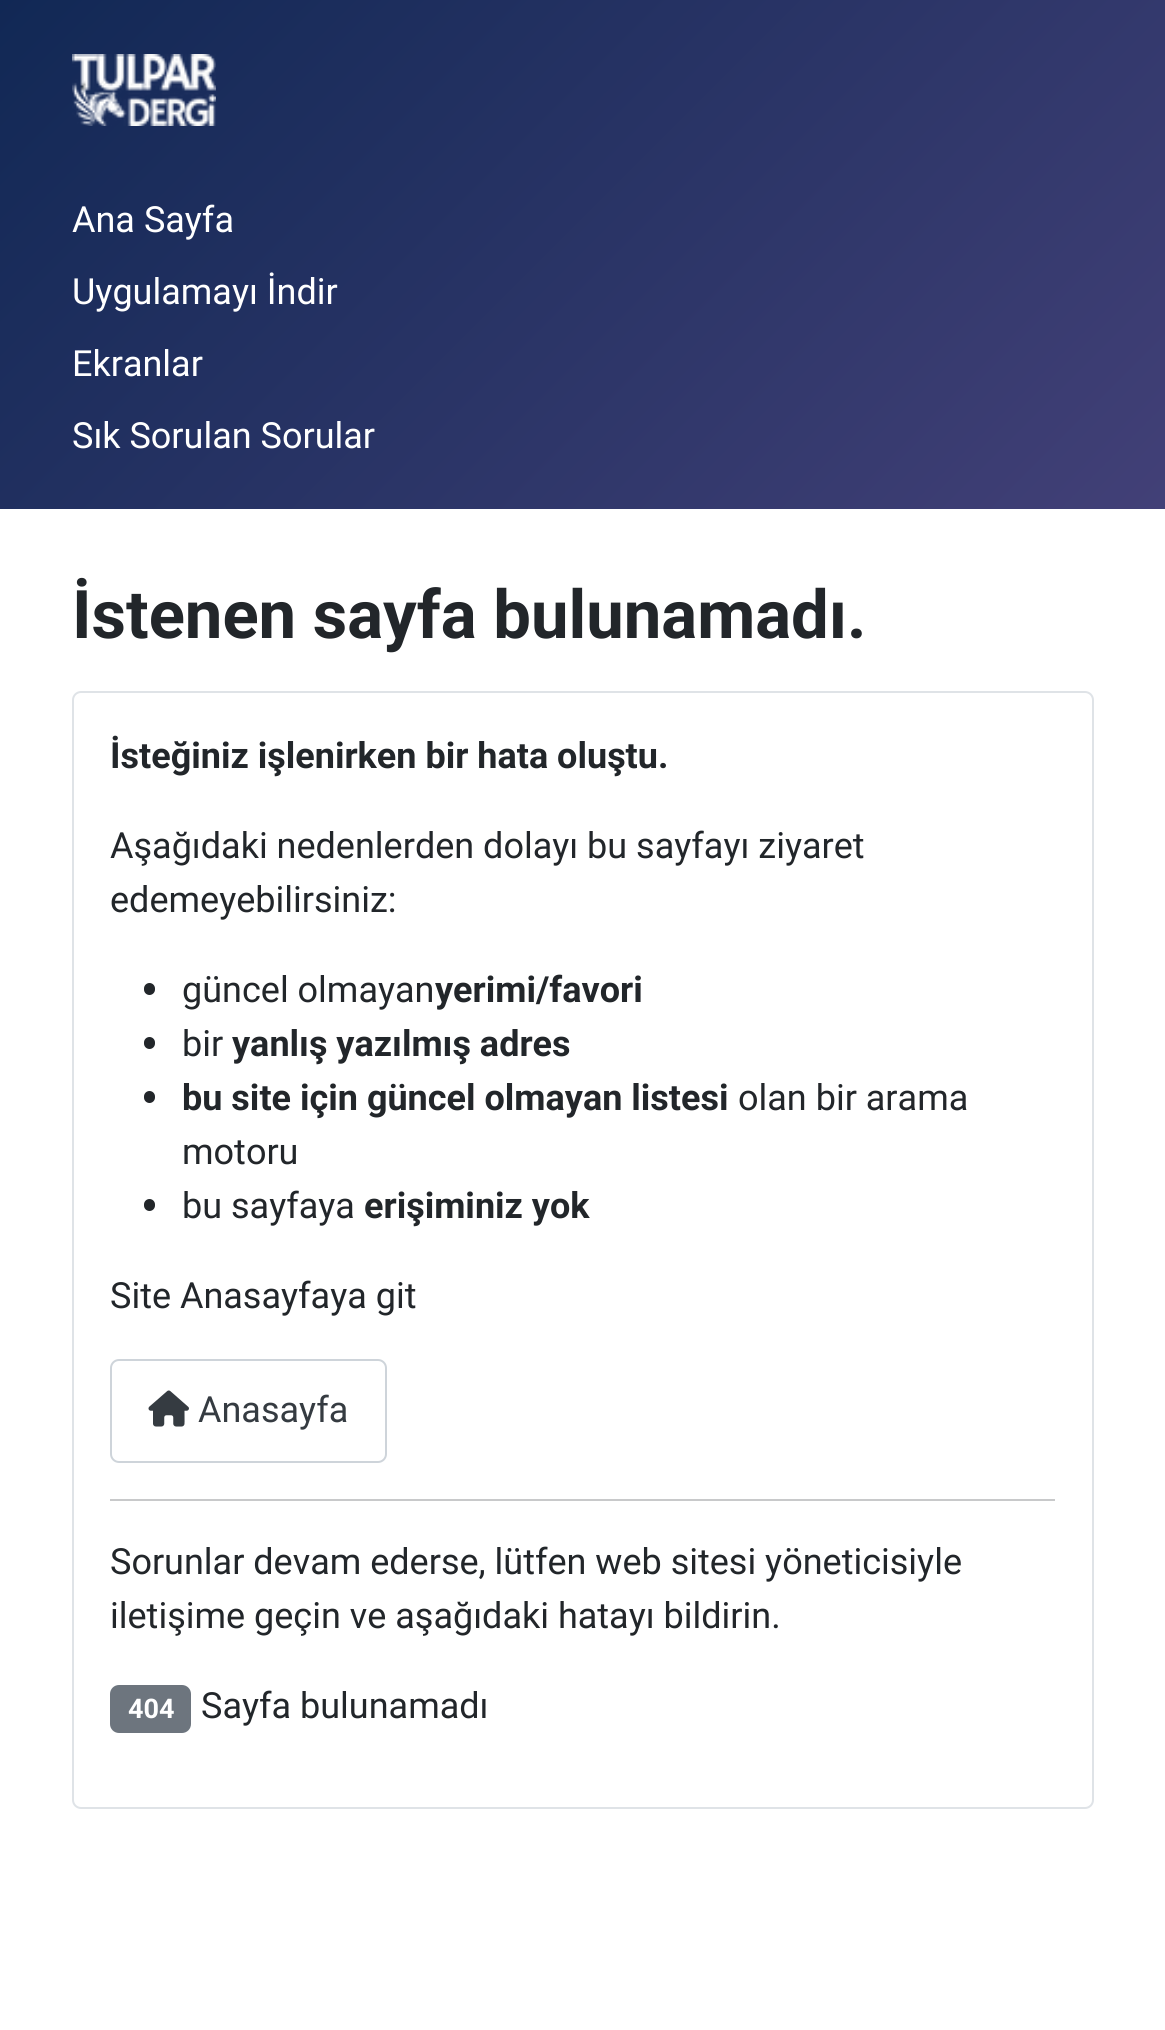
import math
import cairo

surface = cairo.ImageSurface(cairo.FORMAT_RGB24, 1165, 2030)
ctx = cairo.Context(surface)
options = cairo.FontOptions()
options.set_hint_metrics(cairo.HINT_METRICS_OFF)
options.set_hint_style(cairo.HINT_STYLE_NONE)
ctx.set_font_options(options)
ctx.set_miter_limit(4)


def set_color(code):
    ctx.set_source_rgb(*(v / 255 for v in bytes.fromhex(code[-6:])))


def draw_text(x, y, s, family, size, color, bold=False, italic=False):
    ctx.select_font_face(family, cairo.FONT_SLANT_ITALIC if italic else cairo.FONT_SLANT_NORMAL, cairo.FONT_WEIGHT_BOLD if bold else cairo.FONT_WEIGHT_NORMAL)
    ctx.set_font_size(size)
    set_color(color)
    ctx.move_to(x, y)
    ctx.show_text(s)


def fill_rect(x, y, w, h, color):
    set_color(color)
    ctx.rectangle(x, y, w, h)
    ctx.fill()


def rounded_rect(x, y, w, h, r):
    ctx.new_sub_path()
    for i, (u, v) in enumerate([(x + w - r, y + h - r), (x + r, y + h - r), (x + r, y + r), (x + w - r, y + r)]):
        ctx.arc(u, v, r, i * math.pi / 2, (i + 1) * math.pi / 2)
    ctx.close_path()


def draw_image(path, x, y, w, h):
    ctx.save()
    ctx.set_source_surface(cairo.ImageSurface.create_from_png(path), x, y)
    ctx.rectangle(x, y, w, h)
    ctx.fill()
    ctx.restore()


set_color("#ffffff")
ctx.paint()
gradient = cairo.LinearGradient(164, -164, 1001, 673)
gradient.add_color_stop_rgba(0, 0.067, 0.157, 0.333, 1)
gradient.add_color_stop_rgba(1, 0.259, 0.251, 0.467, 1)
ctx.set_source(gradient)
ctx.rectangle(0, 0, 1165, 509)
ctx.fill()
draw_image("assets/img1.png", 72, 54, 144, 72)
draw_text(72, 232, "Ana Sayfa", "Roboto", 36, "#ffffff")
draw_text(72, 304, "Uygulamayı İndir", "Roboto", 36, "#ffffff")
draw_text(72, 376, "Ekranlar", "Roboto", 36, "#ffffff")
draw_text(72, 448, "Sık Sorulan Sorular", "Roboto", 36, "#ffffff")
draw_text(72, 638, "İstenen sayfa bulunamadı.", "Roboto", 67, "#22262a", bold=True)
rounded_rect(73, 692, 1020, 1116, 8)
set_color("#dfe3e7")
ctx.stroke()
draw_text(110, 768, "İsteğiniz işlenirken bir hata oluştu.", "Roboto", 36, "#22262a", bold=True)
draw_text(110, 858, "Aşağıdaki nedenlerden dolayı bu sayfayı ziyaret", "Roboto", 36, "#22262a")
draw_text(110, 912, "edemeyebilirsiniz:", "Roboto", 36, "#22262a")
rounded_rect(144, 983, 11, 12, 5.5)
ctx.fill()
draw_text(182, 1002, "güncel olmayan", "Roboto", 36, "#22262a")
draw_text(435, 1002, "yerimi/favori", "Roboto", 36, "#22262a", bold=True)
rounded_rect(144, 1037, 11, 12, 5.5)
ctx.fill()
draw_text(182, 1056, "bir", "Roboto", 36, "#22262a")
draw_text(232, 1056, "yanlış yazılmış adres", "Roboto", 36, "#22262a", bold=True)
rounded_rect(144, 1091, 11, 12, 5.5)
ctx.fill()
draw_text(182, 1110, "bu site için güncel olmayan listesi", "Roboto", 36, "#22262a", bold=True)
draw_text(738, 1110, "olan bir arama", "Roboto", 36, "#22262a")
draw_text(182, 1164, "motoru", "Roboto", 36, "#22262a")
rounded_rect(144, 1199, 11, 12, 5.5)
ctx.fill()
draw_text(182, 1218, "bu sayfaya", "Roboto", 36, "#22262a")
draw_text(364, 1218, "erişiminiz yok", "Roboto", 36, "#22262a", bold=True)
draw_text(110, 1308, "Site Anasayfaya git", "Roboto", 36, "#22262a")
rounded_rect(111, 1360, 275, 102, 8)
set_color("#ced4da")
ctx.stroke()
draw_image("assets/img2.png", 148, 1390, 41, 37)
draw_text(198, 1422, "Anasayfa", "Roboto", 36, "#353b41")
fill_rect(110, 1499, 945, 2, "#c8c9ca")
draw_text(110, 1574, "Sorunlar devam ederse, lütfen web sitesi yöneticisiyle", "Roboto", 36, "#22262a")
draw_text(110, 1628, "iletişime geçin ve aşağıdaki hatayı bildirin.", "Roboto", 36, "#22262a")
set_color("#6d757e")
rounded_rect(110, 1685, 81, 48, 9)
ctx.fill()
draw_text(128, 1718, "404", "Roboto", 27, "#ffffff", bold=True)
draw_text(201, 1718, "Sayfa bulunamadı", "Roboto", 36, "#22262a")
surface.write_to_png("output.png")
